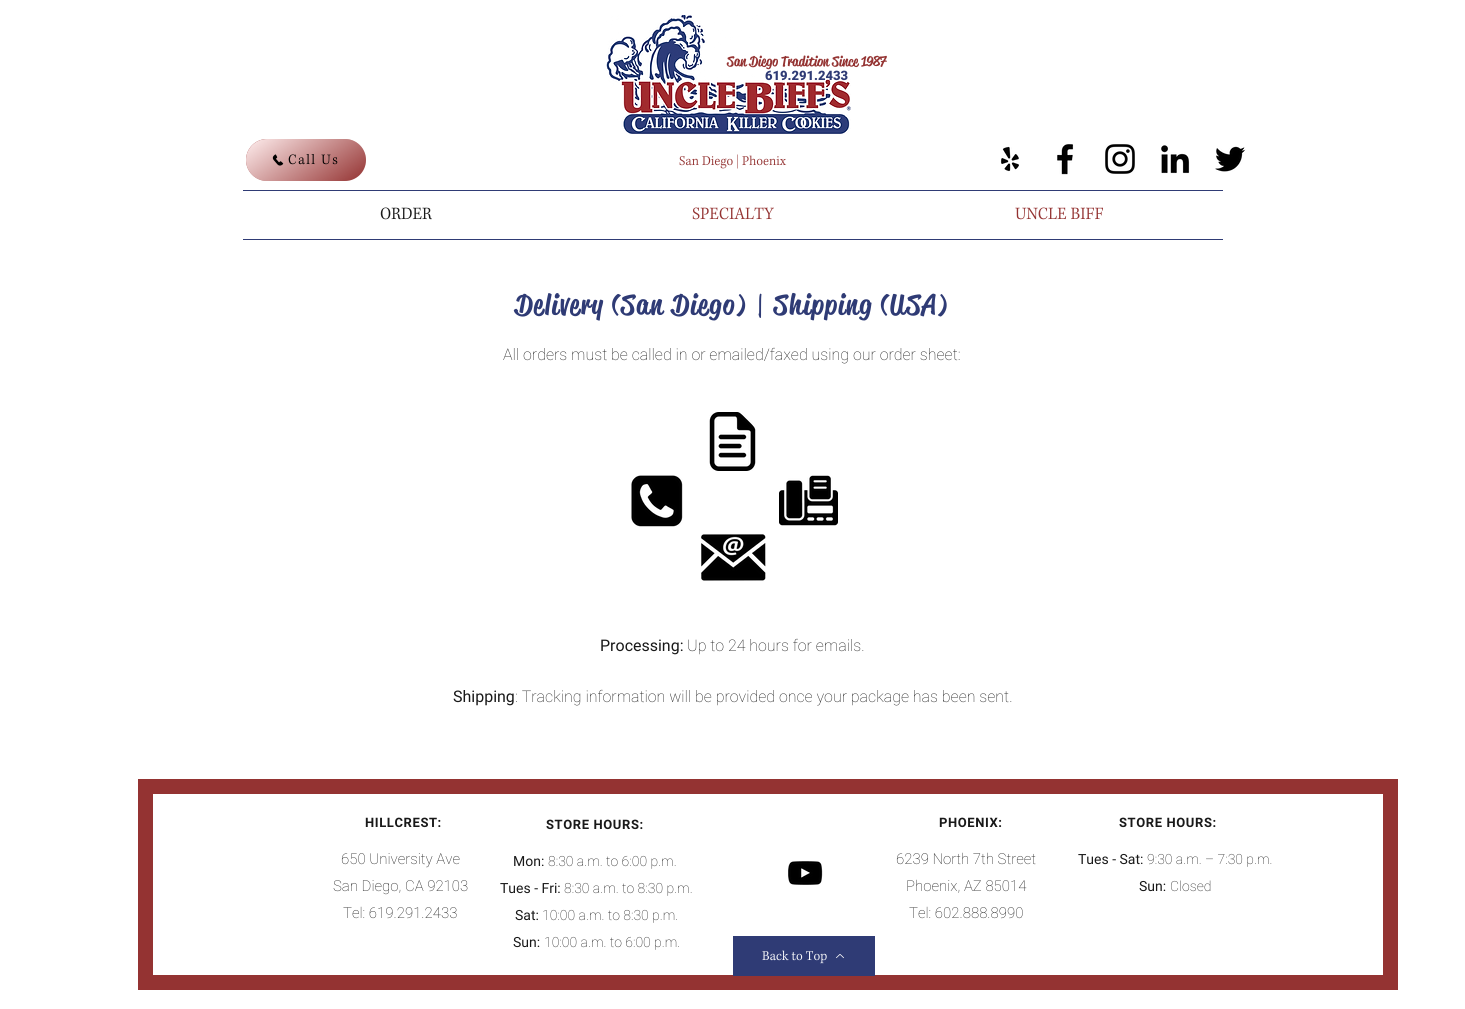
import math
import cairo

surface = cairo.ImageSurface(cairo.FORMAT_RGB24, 1465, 1009)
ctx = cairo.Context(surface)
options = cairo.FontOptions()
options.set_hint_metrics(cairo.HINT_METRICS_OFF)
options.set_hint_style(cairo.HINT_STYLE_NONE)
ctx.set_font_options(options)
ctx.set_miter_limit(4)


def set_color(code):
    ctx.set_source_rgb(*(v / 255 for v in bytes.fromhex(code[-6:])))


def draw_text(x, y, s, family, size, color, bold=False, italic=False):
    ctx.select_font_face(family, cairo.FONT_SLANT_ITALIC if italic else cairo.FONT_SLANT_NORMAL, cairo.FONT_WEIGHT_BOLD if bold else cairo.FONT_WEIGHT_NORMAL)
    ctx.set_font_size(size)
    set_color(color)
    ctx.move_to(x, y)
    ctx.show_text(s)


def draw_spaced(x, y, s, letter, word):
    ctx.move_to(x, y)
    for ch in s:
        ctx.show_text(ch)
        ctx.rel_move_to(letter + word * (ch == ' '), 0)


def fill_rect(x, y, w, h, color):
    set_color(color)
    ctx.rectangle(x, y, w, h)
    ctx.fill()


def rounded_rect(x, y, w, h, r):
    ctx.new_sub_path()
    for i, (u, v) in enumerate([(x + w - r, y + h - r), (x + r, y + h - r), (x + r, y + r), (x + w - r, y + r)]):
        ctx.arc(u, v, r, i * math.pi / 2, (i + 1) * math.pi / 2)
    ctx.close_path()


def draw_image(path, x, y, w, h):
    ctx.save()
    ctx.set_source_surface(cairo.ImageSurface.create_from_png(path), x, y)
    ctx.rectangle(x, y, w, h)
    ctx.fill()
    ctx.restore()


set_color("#ffffff")
ctx.paint()
draw_image("assets/img1.png", 606, 15, 245, 119)
draw_text(727, 66, "San Diego Tradition Since 1987", "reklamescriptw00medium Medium", 14, "#943332")
draw_text(765, 80, "619.291.2433", "Roboto Black", 13, "#2f3b75")
set_color("#943332")
rounded_rect(246, 139, 120, 42, 21)
ctx.fill()
gradient = cairo.LinearGradient(276, 118, 336, 202)
gradient.add_color_stop_rgba(0, 1, 0.933, 0.933, 1)
gradient.add_color_stop_rgba(1, 1, 0.933, 0.933, 0)
ctx.set_source(gradient)
rounded_rect(246, 139, 120, 42, 21)
ctx.fill()
draw_image("assets/img2.png", 272, 154, 12, 12)
draw_image("assets/img3.png", 288, 154, 50, 11)
draw_image("assets/img4.png", 679, 156, 54, 13)
set_color("#943332")
ctx.new_path()
ctx.move_to(738, 154.5)
ctx.line_to(738, 168.5)
ctx.line_to(737.5, 168.5)
ctx.line_to(737.5, 154.5)
ctx.close_path()
ctx.fill()
draw_image("assets/img5.png", 742, 155, 45, 11)
draw_image("assets/img6.png", 1000, 146, 19, 26)
draw_image("assets/img7.png", 1057, 144, 17, 31)
draw_image("assets/img8.png", 1105, 144, 30, 30)
draw_image("assets/img9.png", 1161, 145, 29, 29)
draw_image("assets/img10.png", 1215, 146, 31, 26)
fill_rect(243, 190, 980, 1, "#2f3b75")
fill_rect(243, 239, 980, 1, "#2f3b75")
draw_image("assets/img11.png", 380, 207, 52, 13)
draw_image("assets/img12.png", 692, 207, 82, 13)
draw_image("assets/img13.png", 1015, 207, 88, 13)
ctx.select_font_face("reklamescriptw00medium Medium")
ctx.set_font_size(28)
draw_spaced(515, 314, "Delivery (San Diego) | Shipping (USA)", 1.4, 0)
draw_text(503, 360, "All orders must be called in or emailed/faxed using our order sheet:", "Roboto Thin", 16, "#191919")
draw_image("assets/img14.png", 709, 412, 47, 59)
draw_image("assets/img15.png", 631, 475, 52, 52)
draw_image("assets/img16.png", 779, 475, 59, 51)
draw_image("assets/img17.png", 701, 534, 65, 47)
draw_text(600, 651, "Processing:", "Roboto", 16, "#191919")
draw_text(687, 651, "Up to 24 hours for emails.", "Roboto Thin", 16, "#191919")
draw_text(453, 702, "Shipping", "Roboto", 16, "#191919")
draw_text(515, 702, ": Tracking information will be provided once your package has been sent.", "Roboto Thin", 16, "#191919")
ctx.rectangle(145.5, 786.5, 1245, 196)
set_color("#943332")
ctx.set_line_width(15)
ctx.stroke()
ctx.select_font_face("Roboto", cairo.FONT_SLANT_NORMAL, cairo.FONT_WEIGHT_BOLD)
ctx.set_font_size(13)
set_color("#191919")
draw_spaced(365, 827, "HILLCREST:", 0.6, 0)
draw_spaced(546, 829, "STORE HOURS:", 0.6, 0)
draw_spaced(939, 827, "PHOENIX:", 0.6, 0)
draw_spaced(1119, 827, "STORE HOURS:", 0.6, 0)
draw_text(341, 864, "650 University Ave", "Roboto Thin", 15, "#191919")
draw_text(333, 891, "San Diego, CA 92103", "Roboto Thin", 15, "#191919")
draw_text(343, 918, "Tel: 619.291.2433", "Roboto Thin", 15, "#191919")
draw_text(513, 866, "Mon:", "Roboto", 14, "#191919")
draw_text(548, 866, "8:30 a.m. to 6:00 p.m.", "Roboto Thin", 14, "#191919")
draw_text(500, 893, "Tues - Fri:", "Roboto", 14, "#191919")
draw_text(564, 893, "8:30 a.m. to 8:30 p.m.", "Roboto Thin", 14, "#191919")
draw_text(515, 920, "Sat:", "Roboto", 14, "#191919")
draw_text(542, 920, "10:00 a.m. to 8:30 p.m.", "Roboto Thin", 14, "#191919")
draw_text(513, 947, "Sun:", "Roboto", 14, "#191919")
draw_text(544, 947, "10:00 a.m. to 6:00 p.m.", "Roboto Thin", 14, "#191919")
draw_image("assets/img18.png", 788, 861, 35, 24)
draw_text(896, 864, "6239 North 7th Street", "Roboto Thin", 15, "#191919")
draw_text(906, 891, "Phoenix, AZ 85014", "Roboto Thin", 15, "#191919")
draw_text(909, 918, "Tel: 602.888.8990", "Roboto Thin", 15, "#191919")
draw_text(1078, 864, "Tues - Sat:", "Roboto", 14, "#191919")
draw_text(1147, 864, "9:30 a.m. – 7:30 p.m.", "Roboto Thin", 14, "#191919")
draw_text(1139, 891, "Sun:", "Roboto", 14, "#191919")
draw_text(1170, 891, "Closed", "Roboto Thin", 14, "#191919")
fill_rect(733, 936, 142, 40, "#2f3b75")
draw_image("assets/img19.png", 762, 950, 65, 14)
draw_image("assets/img20.png", 836, 954, 8, 5)
surface.write_to_png("output.png")
